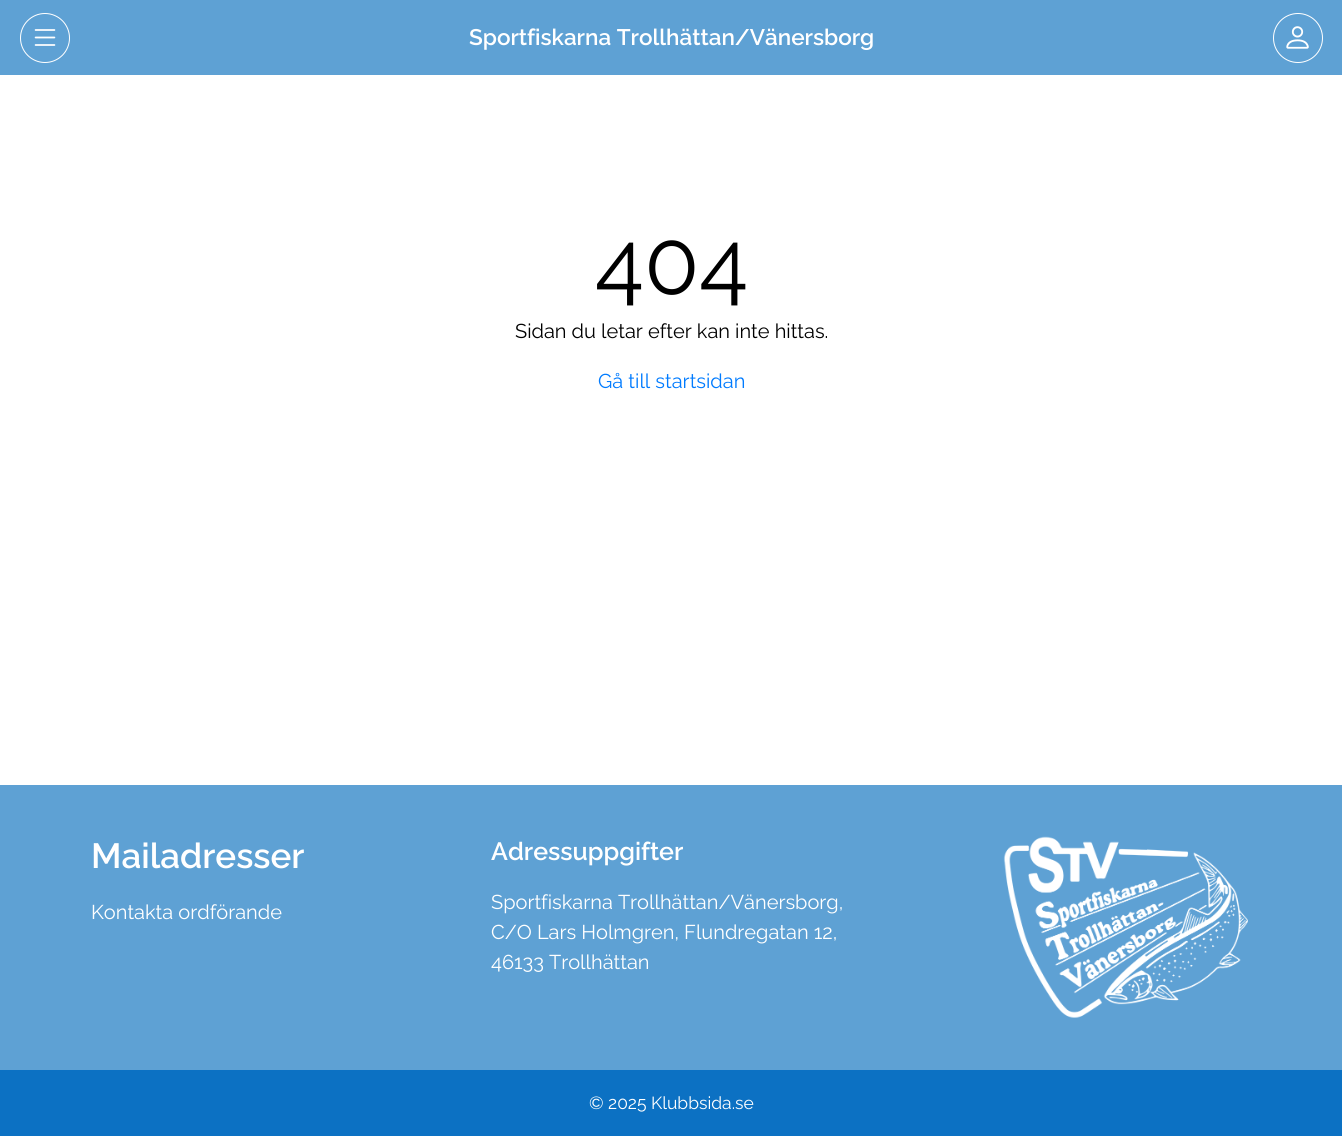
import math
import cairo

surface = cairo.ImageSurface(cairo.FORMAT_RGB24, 1342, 1136)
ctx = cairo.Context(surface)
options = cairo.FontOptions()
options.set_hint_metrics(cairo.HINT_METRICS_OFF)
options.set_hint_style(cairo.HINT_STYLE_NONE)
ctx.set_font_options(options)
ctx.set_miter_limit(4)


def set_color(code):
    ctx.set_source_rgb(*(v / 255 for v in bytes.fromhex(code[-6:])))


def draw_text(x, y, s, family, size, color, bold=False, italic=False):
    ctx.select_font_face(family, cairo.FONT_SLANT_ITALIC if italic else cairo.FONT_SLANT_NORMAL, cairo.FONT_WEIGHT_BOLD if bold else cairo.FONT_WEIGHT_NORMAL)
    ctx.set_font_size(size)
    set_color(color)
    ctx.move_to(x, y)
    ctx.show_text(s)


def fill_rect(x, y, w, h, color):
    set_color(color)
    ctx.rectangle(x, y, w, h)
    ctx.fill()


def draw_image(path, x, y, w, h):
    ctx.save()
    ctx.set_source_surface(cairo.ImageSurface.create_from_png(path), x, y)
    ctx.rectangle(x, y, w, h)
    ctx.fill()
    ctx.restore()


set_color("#ffffff")
ctx.paint()
fill_rect(0, 0, 1342, 75, "#5ea1d4")
ctx.arc(45, 38, 24.5, 0, 2 * math.pi)
set_color("#ffffff")
ctx.set_line_width(1)
ctx.stroke()
draw_image("assets/img1.png", 34, 29, 22, 17)
draw_text(469, 45, "Sportfiskarna Trollhättan/Vänersborg", "Raleway SemiBold", 22.5, "#ffffff")
ctx.new_path()
ctx.arc(1298, 38, 24.5, 0, 2 * math.pi)
ctx.stroke()
draw_image("assets/img2.png", 1286, 26, 23, 23)
draw_text(595, 294, "404", "Raleway", 90, "#000000")
draw_text(515, 338, "Sidan du letar efter kan inte hittas.", "Raleway", 20, "#000000")
draw_text(598, 388, "Gå till startsidan", "Raleway", 20, "#007bff")
fill_rect(0, 785, 1342, 285, "#5ea1d4")
draw_text(91, 868, "Mailadresser", "Raleway SemiBold", 35, "#ffffff")
draw_text(91, 919, "Kontakta ordförande", "Raleway", 20, "#ffffff")
draw_text(491, 860, "Adressuppgifter", "Raleway SemiBold", 25, "#ffffff")
draw_text(491, 909, "Sportfiskarna Trollhättan/Vänersborg,", "Raleway", 20, "#ffffff")
draw_text(491, 939, "C/O Lars Holmgren, Flundregatan 12,", "Raleway", 20, "#ffffff")
draw_text(491, 969, "46133 Trollhättan", "Raleway", 20, "#ffffff")
draw_image("assets/img3.png", 1003, 836, 245, 182)
fill_rect(0, 1070, 1342, 66, "#0c71c3")
draw_text(589, 1109, "© 2025 Klubbsida.se", "Raleway", 17.5, "#ffffff")
surface.write_to_png("output.png")
